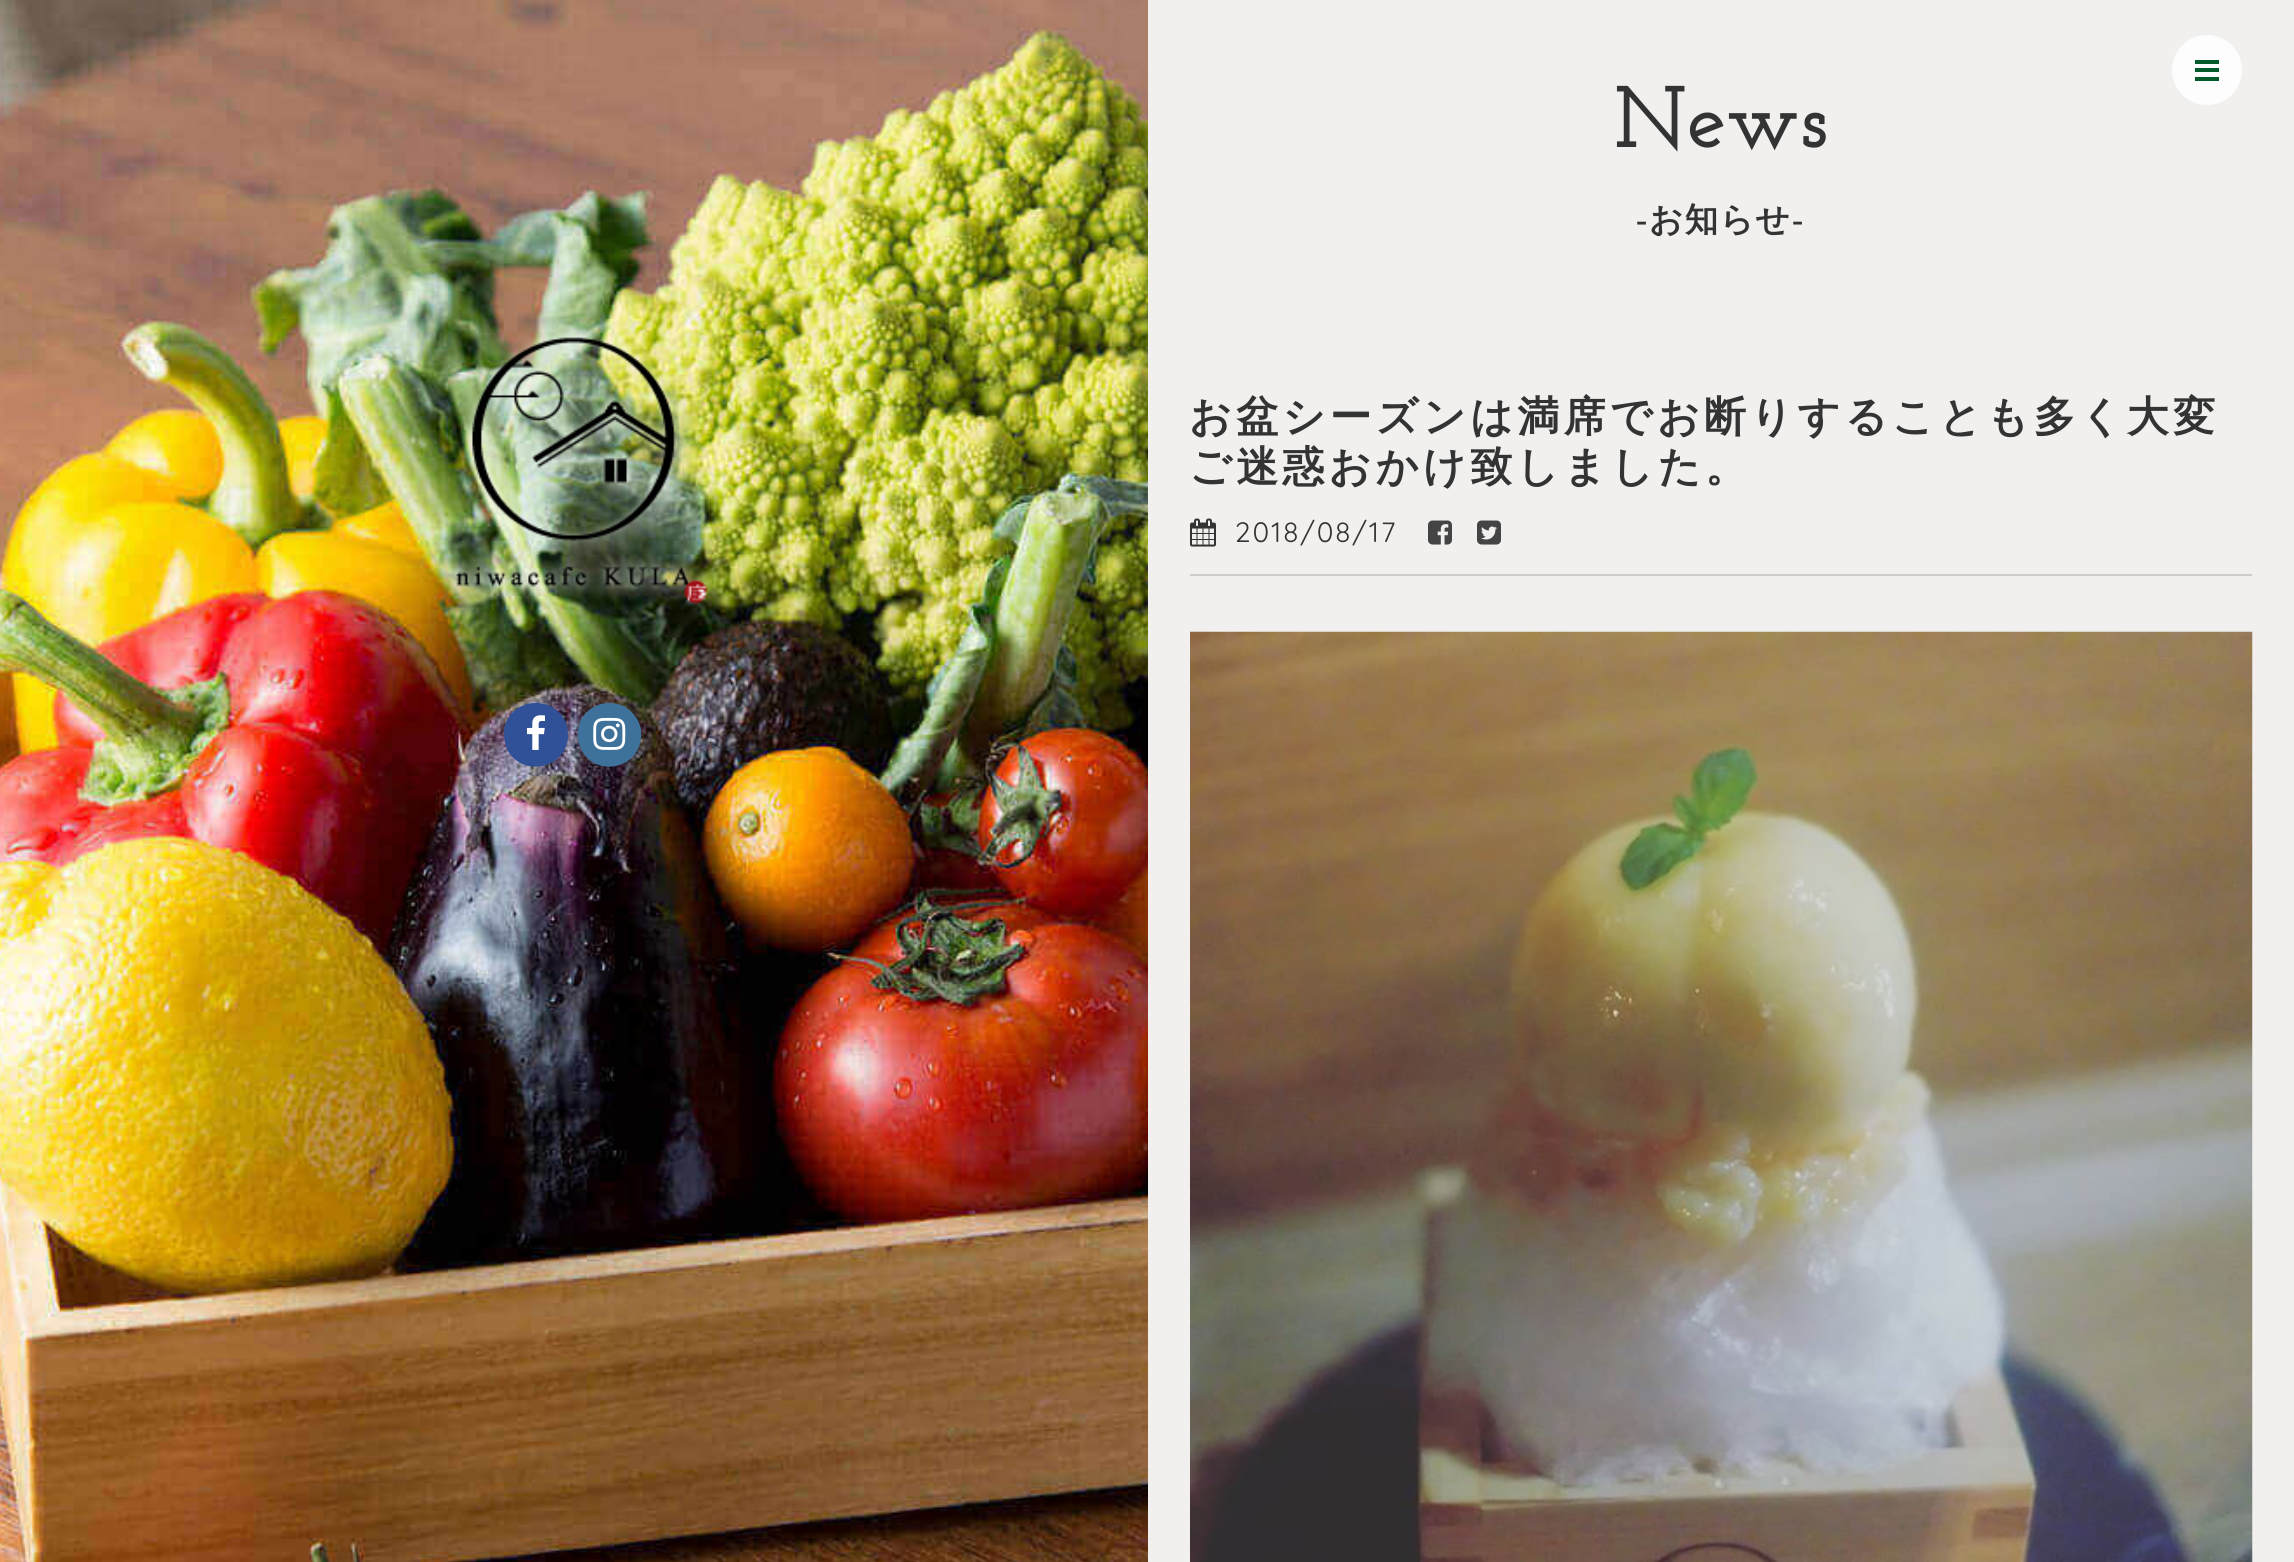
import math
import cairo

surface = cairo.ImageSurface(cairo.FORMAT_RGB24, 2294, 1562)
ctx = cairo.Context(surface)
options = cairo.FontOptions()
options.set_hint_metrics(cairo.HINT_METRICS_OFF)
options.set_hint_style(cairo.HINT_STYLE_NONE)
ctx.set_font_options(options)
ctx.set_miter_limit(4)


def set_color(code):
    ctx.set_source_rgb(*(v / 255 for v in bytes.fromhex(code[-6:])))


def draw_spaced(x, y, s, letter, word):
    ctx.move_to(x, y)
    for ch in s:
        ctx.show_text(ch)
        ctx.rel_move_to(letter + word * (ch == ' '), 0)


def fill_rect(x, y, w, h, color):
    set_color(color)
    ctx.rectangle(x, y, w, h)
    ctx.fill()


def draw_image(path, x, y, w, h):
    ctx.save()
    ctx.set_source_surface(cairo.ImageSurface.create_from_png(path), x, y)
    ctx.rectangle(x, y, w, h)
    ctx.fill()
    ctx.restore()


set_color("#ffffff")
ctx.paint()
draw_image("assets/img1.png", 0, 0, 1148, 1562)
draw_image("assets/img2.png", 443, 332, 265, 273)
set_color("#305097")
ctx.new_path()
ctx.move_to(564, 719)
ctx.curve_to(567, 724, 568, 730, 568, 737)
ctx.curve_to(566, 768, 524, 778, 508, 751)
ctx.curve_to(505, 745, 504, 739, 504, 732)
ctx.curve_to(506, 701, 548, 692, 564, 719)
ctx.close_path()
ctx.fill()
draw_image("assets/img3.png", 527, 715, 18, 35)
set_color("#3f729b")
ctx.new_path()
ctx.move_to(637, 719)
ctx.curve_to(640, 724, 642, 730, 641, 737)
ctx.curve_to(639, 768, 598, 778, 582, 751)
ctx.curve_to(579, 745, 577, 739, 578, 732)
ctx.curve_to(580, 701, 621, 692, 637, 719)
ctx.close_path()
ctx.fill()
draw_image("assets/img4.png", 593, 717, 33, 33)
fill_rect(1148, 0, 1146, 1562, "#f1f0ee")
set_color("#fdfdfd")
ctx.arc(2207, 70, 35, 0, 2 * math.pi)
ctx.fill()
fill_rect(2195, 68, 24, 4, "#005a29")
fill_rect(2195, 60, 24, 4, "#005a29")
fill_rect(2195, 77, 24, 4, "#005a29")
ctx.select_font_face("Josefin Slab", cairo.FONT_SLANT_NORMAL, cairo.FONT_WEIGHT_BOLD)
ctx.set_font_size(84)
set_color("#333333")
draw_spaced(1614, 147, "News", 1.9, 0)
ctx.select_font_face("Liberation Serif", cairo.FONT_SLANT_NORMAL, cairo.FONT_WEIGHT_BOLD)
ctx.set_font_size(33.5)
draw_spaced(1636, 231, "-", 1.5, 0)
ctx.select_font_face("WenQuanYi Zen Hei", cairo.FONT_SLANT_NORMAL, cairo.FONT_WEIGHT_BOLD)
draw_spaced(1649, 231, "お知らせ", 1.5, 0)
ctx.select_font_face("Liberation Serif", cairo.FONT_SLANT_NORMAL, cairo.FONT_WEIGHT_BOLD)
draw_spaced(1792, 231, "-", 1.5, 0)
fill_rect(1190, 574, 1062, 2, "#cccccc")
ctx.select_font_face("WenQuanYi Zen Hei", cairo.FONT_SLANT_NORMAL, cairo.FONT_WEIGHT_BOLD)
ctx.set_font_size(42)
set_color("#333333")
draw_spaced(1189, 431, "お盆シーズンは満席でお断りすることも多く大変", 4.2, 0)
draw_spaced(1189, 481, "ご迷惑おかけ致しました。", 4.2, 0)
draw_image("assets/img5.png", 1190, 518, 26, 29)
ctx.select_font_face("Quicksand")
ctx.set_font_size(28)
draw_spaced(1235, 542, "2018/08/17", 1.9, 0)
draw_image("assets/img6.png", 1428, 520, 24, 25)
draw_image("assets/img7.png", 1477, 520, 24, 25)
draw_image("assets/img8.png", 1190, 631, 1063, 931)
surface.write_to_png("output.png")
